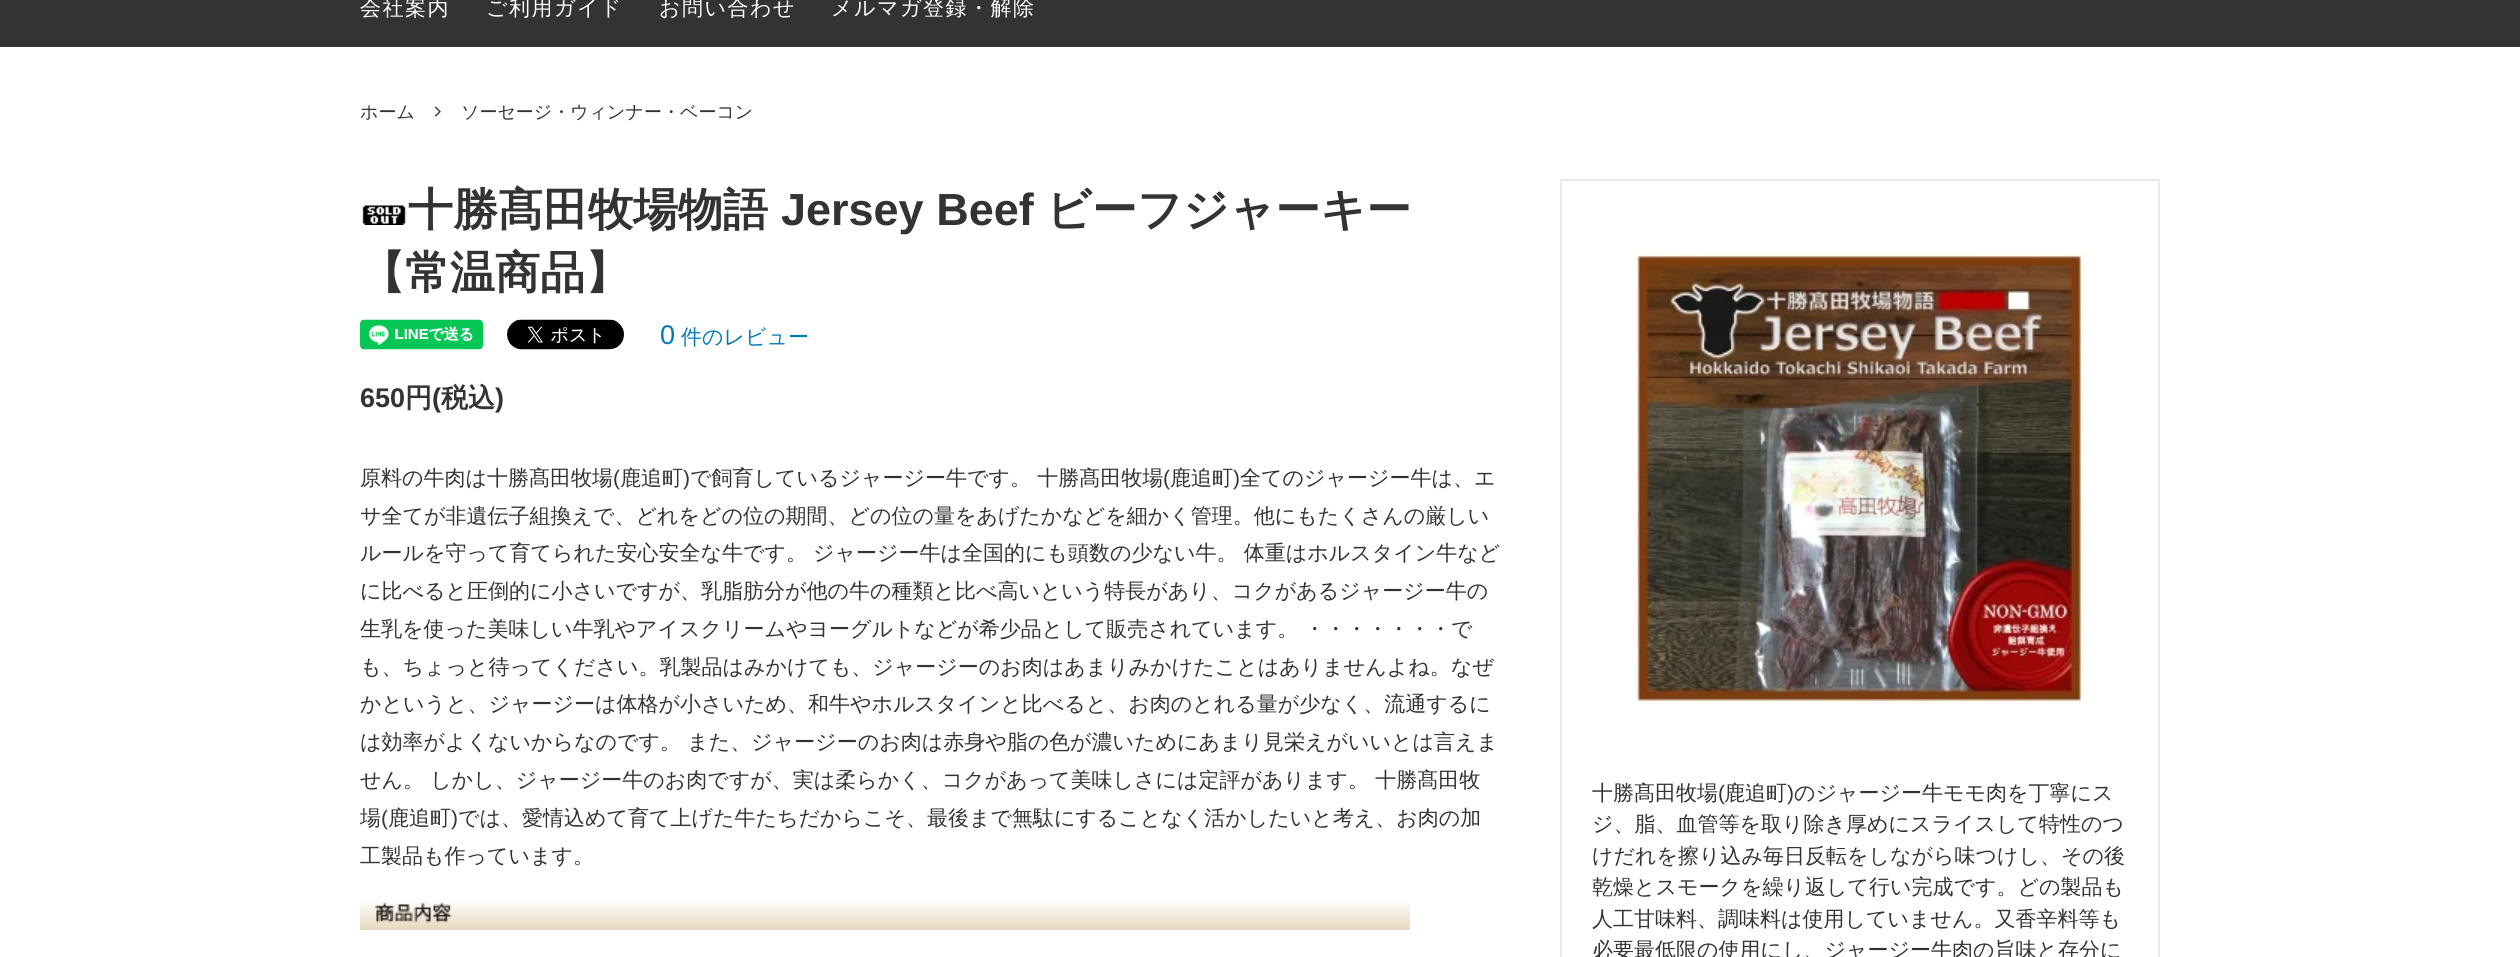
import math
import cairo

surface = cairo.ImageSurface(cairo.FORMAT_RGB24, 2520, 957)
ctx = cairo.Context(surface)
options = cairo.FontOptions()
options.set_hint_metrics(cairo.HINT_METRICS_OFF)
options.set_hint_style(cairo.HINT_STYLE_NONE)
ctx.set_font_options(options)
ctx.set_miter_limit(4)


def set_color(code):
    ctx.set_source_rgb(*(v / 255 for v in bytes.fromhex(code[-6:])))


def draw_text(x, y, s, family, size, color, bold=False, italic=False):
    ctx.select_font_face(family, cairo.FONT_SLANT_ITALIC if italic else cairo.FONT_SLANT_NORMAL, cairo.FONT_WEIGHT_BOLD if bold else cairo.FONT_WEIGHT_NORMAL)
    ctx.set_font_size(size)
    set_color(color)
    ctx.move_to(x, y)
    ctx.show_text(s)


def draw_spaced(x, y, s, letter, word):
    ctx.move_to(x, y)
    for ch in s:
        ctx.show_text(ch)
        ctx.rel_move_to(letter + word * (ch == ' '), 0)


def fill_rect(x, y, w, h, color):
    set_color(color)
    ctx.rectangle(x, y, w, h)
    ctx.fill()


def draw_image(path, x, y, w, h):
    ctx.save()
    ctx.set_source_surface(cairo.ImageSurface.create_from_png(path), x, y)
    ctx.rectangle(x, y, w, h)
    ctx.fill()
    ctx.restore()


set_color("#ffffff")
ctx.paint()
fill_rect(0, 0, 2520, 47, "#333333")
ctx.select_font_face("WenQuanYi Zen Hei Medium")
ctx.set_font_size(21)
set_color("#ffffff")
draw_spaced(360, 15, "会社案内", 1.5, 0)
draw_spaced(486, 15, "ご利用ガイド", 1.5, 0)
draw_spaced(659, 15, "お問い合わせ", 1.5, 0)
draw_spaced(831, 15, "メルマガ登録・解除", 1.5, 0)
draw_text(360, 118, "ホーム", "WenQuanYi Zen Hei Medium", 18, "#333333")
draw_image("assets/img1.png", 435, 106, 6, 11)
draw_text(461, 118, "ソーセージ・ウィンナー・ベーコン", "WenQuanYi Zen Hei Medium", 18, "#333333")
draw_image("assets/img2.png", 362, 205, 44, 20)
draw_text(408, 225, "十勝髙田牧場物語", "WenQuanYi Zen Hei", 45, "#333333", bold=True)
draw_text(781, 225, "Jersey Beef", "Liberation Sans", 45, "#333333", bold=True)
draw_text(1046, 225, "ビーフジャーキー", "WenQuanYi Zen Hei", 45, "#333333", bold=True)
draw_text(360, 288, "【常温商品】", "WenQuanYi Zen Hei", 45, "#333333", bold=True)
draw_image("assets/img3.png", 360, 319, 123, 31)
draw_image("assets/img4.png", 507, 319, 117, 31)
draw_text(660, 344, "0", "Liberation Sans", 27, "#007ab8")
draw_text(681, 344, "件のレビュー", "WenQuanYi Zen Hei Medium", 21, "#007ab8")
draw_text(360, 407, "650", "Liberation Sans", 27, "#333333", bold=True)
draw_text(405, 407, "円", "WenQuanYi Zen Hei", 27, "#333333", bold=True)
draw_text(432, 407, "(", "Liberation Sans", 27, "#333333", bold=True)
draw_text(441, 407, "税込", "WenQuanYi Zen Hei", 27, "#333333", bold=True)
draw_text(495, 407, ")", "Liberation Sans", 27, "#333333", bold=True)
draw_text(360, 485, "原料の牛肉は十勝髙田牧場", "WenQuanYi Zen Hei Medium", 21, "#333333")
draw_text(613, 485, "(", "Liberation Sans", 21, "#333333")
draw_text(620, 485, "鹿追町", "WenQuanYi Zen Hei Medium", 21, "#333333")
draw_text(683, 485, ")", "Liberation Sans", 21, "#333333")
draw_text(690, 485, "で飼育しているジャージー牛です。 十勝髙田牧場", "WenQuanYi Zen Hei Medium", 21, "#333333")
draw_text(1163, 485, "(", "Liberation Sans", 21, "#333333")
draw_text(1170, 485, "鹿追町", "WenQuanYi Zen Hei Medium", 21, "#333333")
draw_text(1233, 485, ")", "Liberation Sans", 21, "#333333")
draw_text(1240, 485, "全てのジャージー牛は、エ", "WenQuanYi Zen Hei Medium", 21, "#333333")
draw_text(360, 523, "サ全てが非遺伝子組換えで、どれをどの位の期間、どの位の量をあげたかなどを細かく管理。他にもたくさんの厳しい", "WenQuanYi Zen Hei Medium", 21, "#333333")
draw_text(360, 560, "ルールを守って育てられた安心安全な牛です。", "WenQuanYi Zen Hei Medium", 21, "#333333")
draw_text(813, 560, "ジャージー牛は全国的にも頭数の少ない牛。 体重はホルスタイン牛など", "WenQuanYi Zen Hei Medium", 21, "#333333")
draw_text(360, 598, "に比べると圧倒的に小さいですが、乳脂肪分が他の牛の種類と比べ高いという特長があり、コクがあるジャージー牛の", "WenQuanYi Zen Hei Medium", 21, "#333333")
draw_text(360, 636, "生乳を使った美味しい牛乳やアイスクリームやヨーグルトなどが希少品として販売されています。", "WenQuanYi Zen Hei Medium", 21, "#333333")
draw_text(1304, 636, "・・・・・・・で", "WenQuanYi Zen Hei Medium", 21, "#333333")
draw_text(360, 674, "も、ちょっと待ってください。乳製品はみかけても、ジャージーのお肉はあまりみかけたことはありませんよね。なぜ", "WenQuanYi Zen Hei Medium", 21, "#333333")
draw_text(360, 711, "かというと、ジャージーは体格が小さいため、和牛やホルスタインと比べると、お肉のとれる量が少なく、流通するに", "WenQuanYi Zen Hei Medium", 21, "#333333")
draw_text(360, 749, "は効率がよくないからなのです。 また、ジャージーのお肉は赤身や脂の色が濃いためにあまり見栄えがいいとは言えま", "WenQuanYi Zen Hei Medium", 21, "#333333")
draw_text(360, 787, "せん。 しかし、ジャージー牛のお肉ですが、実は柔らかく、コクがあって美味しさには定評があります。 十勝髙田牧", "WenQuanYi Zen Hei Medium", 21, "#333333")
draw_text(360, 825, "場", "WenQuanYi Zen Hei Medium", 21, "#333333")
draw_text(381, 825, "(", "Liberation Sans", 21, "#333333")
draw_text(388, 825, "鹿追町", "WenQuanYi Zen Hei Medium", 21, "#333333")
draw_text(451, 825, ")", "Liberation Sans", 21, "#333333")
draw_text(458, 825, "では、愛情込めて育て上げた牛たちだからこそ、最後まで無駄にすることなく活かしたいと考え、お肉の加", "WenQuanYi Zen Hei Medium", 21, "#333333")
draw_text(360, 863, "工製品も作っています。", "WenQuanYi Zen Hei Medium", 21, "#333333")
draw_image("assets/img5.png", 360, 902, 1050, 28)
ctx.rectangle(1561, 180, 598, 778)
set_color("#eaeaea")
ctx.stroke()
draw_image("assets/img6.png", 1635, 253, 450, 451)
draw_text(1592, 800, "十勝髙田牧場", "WenQuanYi Zen Hei Medium", 21, "#333333")
draw_text(1718, 800, "(", "Liberation Sans", 21, "#333333")
draw_text(1724, 800, "鹿追町", "WenQuanYi Zen Hei Medium", 21, "#333333")
draw_text(1787, 800, ")", "Liberation Sans", 21, "#333333")
draw_text(1794, 800, "のジャージー牛モモ肉を丁寧にス", "WenQuanYi Zen Hei Medium", 21, "#333333")
draw_text(1592, 831, "ジ、脂、血管等を取り除き厚めにスライスして特性のつ", "WenQuanYi Zen Hei Medium", 21, "#333333")
draw_text(1592, 863, "けだれを擦り込み毎日反転をしながら味つけし、その後", "WenQuanYi Zen Hei Medium", 21, "#333333")
draw_text(1592, 894, "乾燥とスモークを繰り返して行い完成です。どの製品も", "WenQuanYi Zen Hei Medium", 21, "#333333")
draw_text(1592, 926, "人工甘味料、調味料は使用していません。又香辛料等も", "WenQuanYi Zen Hei Medium", 21, "#333333")
draw_text(1592, 957, "必要最低限の使用にし、ジャージー牛肉の旨味と存分に", "WenQuanYi Zen Hei Medium", 21, "#333333")
surface.write_to_png("output.png")
